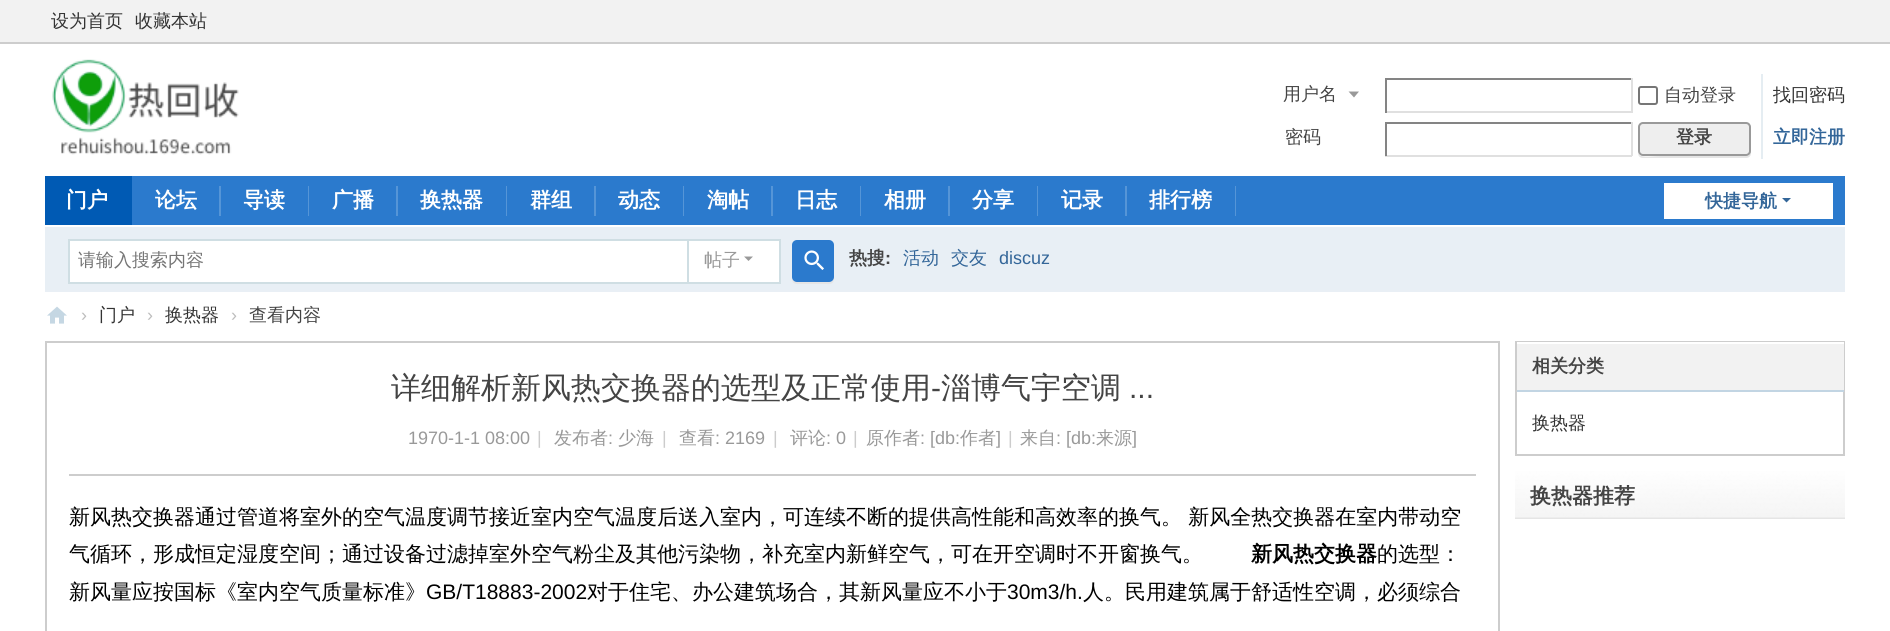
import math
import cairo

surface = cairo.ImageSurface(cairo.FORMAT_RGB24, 1890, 631)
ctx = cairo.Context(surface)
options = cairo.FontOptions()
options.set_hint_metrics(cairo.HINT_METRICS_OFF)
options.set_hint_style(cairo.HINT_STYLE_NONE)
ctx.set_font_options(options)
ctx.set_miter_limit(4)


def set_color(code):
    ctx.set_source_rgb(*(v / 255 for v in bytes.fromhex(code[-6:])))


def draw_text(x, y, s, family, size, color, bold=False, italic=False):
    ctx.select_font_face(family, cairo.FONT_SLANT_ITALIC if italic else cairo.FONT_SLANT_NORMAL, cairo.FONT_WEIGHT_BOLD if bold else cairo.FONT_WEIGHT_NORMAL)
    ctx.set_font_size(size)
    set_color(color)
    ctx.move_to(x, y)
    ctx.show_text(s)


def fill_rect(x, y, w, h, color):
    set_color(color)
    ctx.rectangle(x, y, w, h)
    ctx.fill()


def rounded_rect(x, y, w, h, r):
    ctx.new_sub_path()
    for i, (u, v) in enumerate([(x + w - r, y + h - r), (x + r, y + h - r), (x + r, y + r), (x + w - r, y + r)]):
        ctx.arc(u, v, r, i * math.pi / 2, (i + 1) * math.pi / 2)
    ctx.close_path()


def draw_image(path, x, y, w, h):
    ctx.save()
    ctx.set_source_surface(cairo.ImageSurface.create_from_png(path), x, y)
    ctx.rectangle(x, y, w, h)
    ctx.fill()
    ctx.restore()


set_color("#ffffff")
ctx.paint()
fill_rect(0, 0, 1890, 42, "#f2f2f2")
fill_rect(0, 42, 1890, 2, "#cdcdcd")
draw_text(51, 27, "设为首页", "WenQuanYi Zen Hei Medium", 18, "#333333")
draw_text(135, 27, "收藏本站", "WenQuanYi Zen Hei Medium", 18, "#333333")
draw_image("assets/img1.png", 52, 59, 187, 96)
set_color("#999999")
ctx.new_path()
ctx.move_to(1359, 91.5)
ctx.line_to(1348.5, 91.5)
ctx.line_to(1354, 97.5)
ctx.close_path()
ctx.fill()
draw_text(1283, 100, "用户名", "WenQuanYi Zen Hei Medium", 18, "#444444")
fill_rect(1385, 78, 247, 2, "#848484")
fill_rect(1631, 78, 2, 35, "#e0e0e0")
fill_rect(1385, 111, 247, 2, "#e0e0e0")
fill_rect(1385, 78, 2, 35, "#848484")
rounded_rect(1639, 87, 18, 17, 2)
set_color("#767676")
ctx.stroke()
draw_text(1664, 101, "自动登录", "WenQuanYi Zen Hei Medium", 18, "#444444")
draw_text(1773, 101, "找回密码", "WenQuanYi Zen Hei Medium", 18, "#333333")
draw_text(1285, 143, "密码", "WenQuanYi Zen Hei Medium", 18, "#444444")
fill_rect(1385, 122, 247, 2, "#848484")
fill_rect(1631, 122, 2, 34, "#e0e0e0")
fill_rect(1385, 155, 247, 2, "#e0e0e0")
fill_rect(1385, 122, 2, 34, "#848484")
fill_rect(1761, 74, 2, 85, "#e5edf2")
set_color("#e5e5e5")
ctx.new_path()
ctx.move_to(1638, 152)
ctx.line_to(1638, 153)
ctx.curve_to(1638, 156, 1640, 158, 1643, 158)
ctx.line_to(1746, 158)
ctx.curve_to(1749, 158, 1751, 156, 1751, 153)
ctx.line_to(1751, 128)
ctx.line_to(1750, 126)
ctx.line_to(1750, 147)
ctx.curve_to(1750, 151, 1751, 156, 1746, 156)
ctx.line_to(1660, 156)
ctx.curve_to(1651, 156, 1638, 159, 1638, 152)
ctx.close_path()
ctx.fill()
set_color("#eeeeee")
rounded_rect(1639, 123, 111, 32, 4)
ctx.fill_preserve()
set_color("#999999")
ctx.stroke()
draw_text(1676, 143, "登录", "WenQuanYi Zen Hei", 18, "#444444", bold=True)
draw_text(1773, 143, "立即注册", "WenQuanYi Zen Hei", 18, "#336699", bold=True)
fill_rect(132, 176, 1713, 49, "#2b7acd")
fill_rect(45, 176, 87, 49, "#005ab4")
draw_text(66, 207, "门户", "WenQuanYi Zen Hei", 21, "#ffffff", bold=True)
fill_rect(219, 186, 2, 30, "#5595d7")
draw_text(155, 207, "论坛", "WenQuanYi Zen Hei", 21, "#ffffff", bold=True)
fill_rect(308, 186, 1, 30, "#5595d7")
draw_text(243, 207, "导读", "WenQuanYi Zen Hei", 21, "#ffffff", bold=True)
fill_rect(396, 186, 2, 30, "#5595d7")
draw_text(332, 207, "广播", "WenQuanYi Zen Hei", 21, "#ffffff", bold=True)
fill_rect(506, 186, 1, 30, "#5595d7")
draw_text(420, 207, "换热器", "WenQuanYi Zen Hei", 21, "#ffffff", bold=True)
fill_rect(594, 186, 2, 30, "#5595d7")
draw_text(530, 207, "群组", "WenQuanYi Zen Hei", 21, "#ffffff", bold=True)
fill_rect(683, 186, 1, 30, "#5595d7")
draw_text(618, 207, "动态", "WenQuanYi Zen Hei", 21, "#ffffff", bold=True)
fill_rect(771, 186, 2, 30, "#5595d7")
draw_text(707, 207, "淘帖", "WenQuanYi Zen Hei", 21, "#ffffff", bold=True)
fill_rect(860, 186, 1, 30, "#5595d7")
draw_text(795, 207, "日志", "WenQuanYi Zen Hei", 21, "#ffffff", bold=True)
fill_rect(948, 186, 2, 30, "#5595d7")
draw_text(884, 207, "相册", "WenQuanYi Zen Hei", 21, "#ffffff", bold=True)
fill_rect(1037, 186, 1, 30, "#5595d7")
draw_text(972, 207, "分享", "WenQuanYi Zen Hei", 21, "#ffffff", bold=True)
fill_rect(1125, 186, 2, 30, "#5595d7")
draw_text(1061, 207, "记录", "WenQuanYi Zen Hei", 21, "#ffffff", bold=True)
fill_rect(1235, 186, 1, 30, "#5595d7")
draw_text(1149, 207, "排行榜", "WenQuanYi Zen Hei", 21, "#ffffff", bold=True)
fill_rect(1664, 183, 169, 36, "#ffffff")
draw_text(1705, 207, "快捷导航", "WenQuanYi Zen Hei", 18, "#336699", bold=True)
ctx.new_path()
ctx.move_to(1782, 198)
ctx.line_to(1791, 198)
ctx.line_to(1786.5, 202.5)
ctx.close_path()
ctx.fill()
fill_rect(45, 227, 1800, 63, "#e8eff5")
fill_rect(45, 290, 1800, 2, "#e9eff5")
fill_rect(686, 239, 94, 2, "#cfdee3")
fill_rect(779, 239, 2, 45, "#cfdee3")
fill_rect(686, 282, 94, 2, "#cfdee3")
set_color("#ffffff")
ctx.rectangle(69, 240, 619, 43)
ctx.fill_preserve()
set_color("#cfdee3")
ctx.stroke()
draw_text(78, 266, "请输入搜索内容", "WenQuanYi Zen Hei Medium", 18, "#757575")
fill_rect(689, 241, 90, 41, "#ffffff")
draw_text(704, 266, "帖子", "WenQuanYi Zen Hei Medium", 18, "#999999")
ctx.new_path()
ctx.move_to(744, 256.5)
ctx.line_to(753, 256.5)
ctx.line_to(748.5, 261)
ctx.close_path()
ctx.fill()
set_color("#e5e5e5")
ctx.new_path()
ctx.move_to(792, 278)
ctx.curve_to(792, 285, 796, 284, 802, 284)
ctx.line_to(824, 284)
ctx.curve_to(830, 284, 834, 285, 834, 278)
ctx.curve_to(834, 280, 832, 282, 830, 282)
ctx.line_to(796, 282)
ctx.curve_to(794, 282, 792, 280, 792, 278)
ctx.close_path()
ctx.fill()
set_color("#2b7acd")
rounded_rect(792, 240, 42, 42, 5)
ctx.fill()
draw_image("assets/img2.png", 804, 250, 20, 20)
draw_text(849, 264, "热搜", "WenQuanYi Zen Hei", 18, "#444444", bold=True)
draw_text(885, 264, ":", "Liberation Sans", 18, "#444444", bold=True)
draw_text(903, 264, "活动", "WenQuanYi Zen Hei Medium", 18, "#336699")
draw_text(951, 264, "交友", "WenQuanYi Zen Hei Medium", 18, "#336699")
draw_text(999, 264, "discuz", "Liberation Sans", 18, "#336699")
draw_image("assets/img3.png", 47, 306, 20, 18)
draw_text(81, 321, "›", "Liberation Sans", 18, "#bdbdbd")
draw_text(99, 321, "门户", "WenQuanYi Zen Hei Medium", 18, "#333333")
draw_text(147, 321, "›", "Liberation Sans", 18, "#bdbdbd")
draw_text(165, 321, "换热器", "WenQuanYi Zen Hei Medium", 18, "#333333")
draw_text(231, 321, "›", "Liberation Sans", 18, "#bdbdbd")
draw_text(249, 321, "查看内容", "WenQuanYi Zen Hei Medium", 18, "#444444")
ctx.rectangle(46, 342, 1453, 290)
set_color("#cdcdcd")
ctx.stroke()
fill_rect(69, 474, 1407, 2, "#cdcdcd")
draw_text(391, 398, "详细解析新风热交换器的选型及正常使用", "WenQuanYi Zen Hei Medium", 30, "#444444")
draw_text(931, 398, "-", "Liberation Sans", 30, "#444444")
draw_text(941, 398, "淄博气宇空调", "WenQuanYi Zen Hei Medium", 30, "#444444")
draw_text(1129, 398, "...", "Liberation Sans", 30, "#444444")
draw_text(408, 444, "1970-1-1 08:00", "Liberation Sans", 18, "#999999")
draw_text(537, 444, "|", "Liberation Sans", 18, "#cccccc")
draw_text(554, 444, "发布者", "WenQuanYi Zen Hei Medium", 18, "#999999")
draw_text(608, 444, ":", "Liberation Sans", 18, "#999999")
draw_text(618, 444, "少海", "WenQuanYi Zen Hei Medium", 18, "#999999")
draw_text(662, 444, "|", "Liberation Sans", 18, "#cccccc")
draw_text(679, 444, "查看", "WenQuanYi Zen Hei Medium", 18, "#999999")
draw_text(715, 444, ": 2169", "Liberation Sans", 18, "#999999")
draw_text(773, 444, "|", "Liberation Sans", 18, "#cccccc")
draw_text(790, 444, "评论", "WenQuanYi Zen Hei Medium", 18, "#999999")
draw_text(826, 444, ": 0", "Liberation Sans", 18, "#999999")
draw_text(853, 444, "|", "Liberation Sans", 18, "#cccccc")
draw_text(866, 444, "原作者", "WenQuanYi Zen Hei Medium", 18, "#999999")
draw_text(920, 444, ": [db:", "Liberation Sans", 18, "#999999")
draw_text(960, 444, "作者", "WenQuanYi Zen Hei Medium", 18, "#999999")
draw_text(996, 444, "]", "Liberation Sans", 18, "#999999")
draw_text(1008, 444, "|", "Liberation Sans", 18, "#cccccc")
draw_text(1020, 444, "来自", "WenQuanYi Zen Hei Medium", 18, "#999999")
draw_text(1056, 444, ": [db:", "Liberation Sans", 18, "#999999")
draw_text(1096, 444, "来源", "WenQuanYi Zen Hei Medium", 18, "#999999")
draw_text(1132, 444, "]", "Liberation Sans", 18, "#999999")
draw_text(69, 524, "新风热交换器通过管道将室外的空气温度调节接近室内空气温度后送入室内，可连续不断的提供高性能和高效率的换气。 新风全热交换器在室内带动空", "WenQuanYi Zen Hei Medium", 21, "#000000")
draw_text(69, 561, "气循环，形成恒定湿度空间；通过设备过滤掉室外空气粉尘及其他污染物，补充室内新鲜空气，可在开空调时不开窗换气。", "WenQuanYi Zen Hei Medium", 21, "#000000")
draw_text(1251, 561, "新风热交换器", "WenQuanYi Zen Hei", 21, "#000000", bold=True)
draw_text(1377, 561, "的选型：", "WenQuanYi Zen Hei Medium", 21, "#000000")
draw_text(69, 599, "新风量应按国标《室内空气质量标准》", "WenQuanYi Zen Hei Medium", 21, "#000000")
draw_text(426, 599, "GB/T18883-2002", "Liberation Sans", 21, "#000000")
draw_text(587, 599, "对于住宅、办公建筑场合，其新风量应不小于", "WenQuanYi Zen Hei Medium", 21, "#000000")
draw_text(1007, 599, "30m3/h.", "Liberation Sans", 21, "#000000")
draw_text(1083, 599, "人。民用建筑属于舒适性空调，必须综合", "WenQuanYi Zen Hei Medium", 21, "#000000")
ctx.rectangle(1516, 342, 328, 113)
set_color("#cdcdcd")
ctx.stroke()
fill_rect(1517, 344, 327, 46, "#f2f2f2")
fill_rect(1517, 342, 327, 2, "#ffffff")
fill_rect(1517, 390, 327, 2, "#c2d5e3")
draw_text(1532, 372, "相关分类", "WenQuanYi Zen Hei", 18, "#444444", bold=True)
draw_text(1532, 429, "换热器", "WenQuanYi Zen Hei Medium", 18, "#333333")
draw_image("assets/img4.png", 1515, 471, 330, 48)
draw_text(1530, 503, "换热器推荐", "WenQuanYi Zen Hei", 21, "#444444", bold=True)
surface.write_to_png("output.png")
